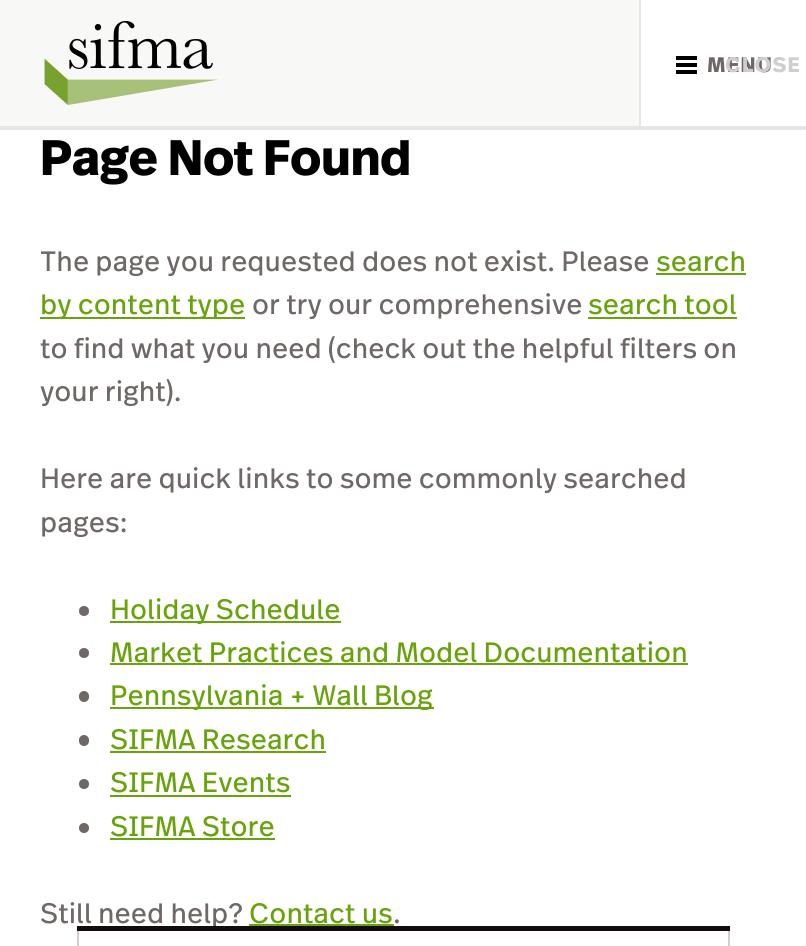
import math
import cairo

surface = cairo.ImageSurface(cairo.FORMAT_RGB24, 806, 946)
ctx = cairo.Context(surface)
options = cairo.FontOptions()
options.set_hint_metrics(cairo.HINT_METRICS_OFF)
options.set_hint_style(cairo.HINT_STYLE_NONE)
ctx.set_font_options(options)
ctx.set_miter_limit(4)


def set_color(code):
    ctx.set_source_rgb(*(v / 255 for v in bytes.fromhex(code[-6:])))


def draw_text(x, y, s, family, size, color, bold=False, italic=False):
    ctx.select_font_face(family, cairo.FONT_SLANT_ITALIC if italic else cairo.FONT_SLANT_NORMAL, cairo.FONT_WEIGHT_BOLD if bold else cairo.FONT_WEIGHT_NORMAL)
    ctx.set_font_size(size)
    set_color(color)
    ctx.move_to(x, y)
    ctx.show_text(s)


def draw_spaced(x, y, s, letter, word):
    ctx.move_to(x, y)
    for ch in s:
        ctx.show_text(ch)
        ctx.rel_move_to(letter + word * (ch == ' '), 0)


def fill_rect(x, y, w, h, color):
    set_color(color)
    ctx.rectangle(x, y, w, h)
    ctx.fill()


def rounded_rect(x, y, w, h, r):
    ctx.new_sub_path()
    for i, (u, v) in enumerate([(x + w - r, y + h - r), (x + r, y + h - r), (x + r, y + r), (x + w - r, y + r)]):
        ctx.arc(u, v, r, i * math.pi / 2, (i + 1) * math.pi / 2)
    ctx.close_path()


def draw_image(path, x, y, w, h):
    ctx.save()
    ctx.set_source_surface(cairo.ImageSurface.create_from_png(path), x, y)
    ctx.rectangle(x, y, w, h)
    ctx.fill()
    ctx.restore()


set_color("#f8f8f7")
ctx.paint()
draw_image("assets/img1.png", 44, 21, 174, 84)
fill_rect(641, 0, 165, 126, "#ffffff")
fill_rect(639, 0, 2, 126, "#e8e5e4")
fill_rect(676, 63, 21, 4, "#000000")
fill_rect(676, 56, 21, 4, "#000000")
fill_rect(676, 70, 21, 4, "#000000")
ctx.select_font_face("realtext", cairo.FONT_SLANT_NORMAL, cairo.FONT_WEIGHT_BOLD)
ctx.set_font_size(21)
set_color("#6e6866")
draw_spaced(707, 72, "MENU", 1, 0)
set_color("#cfcecd")
draw_spaced(725, 72, "CLOSE", 1, 0)
fill_rect(0, 126, 806, 4, "#e8e5e4")
fill_rect(0, 130, 806, 816, "#ffffff")
draw_text(40, 175, "Page Not Found", "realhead", 49.75, "#000000", bold=True)
draw_text(40, 271, "The page you requested does not exist. Please", "realtext", 28, "#6e6866")
draw_text(656, 271, "search", "realtext", 28, "#68a30c")
fill_rect(656, 273, 90, 2, "#68a30c")
fill_rect(40, 317, 205, 2, "#68a30c")
draw_text(40, 314, "by content type", "realtext", 28, "#68a30c")
draw_text(252, 314, "or try our comprehensive", "realtext", 28, "#6e6866")
draw_text(588, 314, "search tool", "realtext", 28, "#68a30c")
fill_rect(588, 317, 149, 2, "#68a30c")
draw_text(40, 358, "to find what you need (check out the helpful filters on", "realtext", 28, "#6e6866")
draw_text(40, 401, "your right).", "realtext", 28, "#6e6866")
draw_text(40, 488, "Here are quick links to some commonly searched", "realtext", 28, "#6e6866")
draw_text(40, 532, "pages:", "realtext", 28, "#6e6866")
ctx.new_path()
ctx.arc(84, 611, 5, 0, 2 * math.pi)
ctx.fill()
fill_rect(110, 621, 231, 2, "#68a30c")
draw_text(110, 619, "Holiday Schedule", "realtext", 28, "#68a30c")
set_color("#6e6866")
ctx.new_path()
ctx.arc(84, 653, 5, 0, 2 * math.pi)
ctx.fill()
draw_text(110, 662, "Market Practices and Model Documentation", "realtext", 28, "#68a30c")
fill_rect(110, 663, 578, 2, "#68a30c")
set_color("#6e6866")
rounded_rect(79, 691, 10, 11, 5)
ctx.fill()
fill_rect(110, 707, 324, 2, "#68a30c")
draw_text(110, 705, "Pennsylvania + Wall Blog", "realtext", 28, "#68a30c")
set_color("#6e6866")
rounded_rect(79, 735, 10, 11, 5)
ctx.fill()
draw_text(110, 749, "SIFMA Research", "realtext", 28, "#68a30c")
fill_rect(110, 751, 216, 2, "#68a30c")
set_color("#6e6866")
ctx.new_path()
ctx.arc(84, 784, 5, 0, 2 * math.pi)
ctx.fill()
draw_text(110, 792, "SIFMA Events", "realtext", 28, "#68a30c")
fill_rect(110, 795, 181, 2, "#68a30c")
set_color("#6e6866")
ctx.new_path()
ctx.arc(84, 828, 5, 0, 2 * math.pi)
ctx.fill()
draw_text(110, 836, "SIFMA Store", "realtext", 28, "#68a30c")
fill_rect(110, 838, 165, 2, "#68a30c")
draw_text(40, 923, "Still need help?", "realtext", 28, "#6e6866")
draw_text(249, 923, "Contact us", "realtext", 28, "#68a30c")
fill_rect(249, 924, 145, 2, "#68a30c")
draw_text(393, 923, ".", "realtext", 28, "#6e6866")
ctx.rectangle(78, 927, 651, 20)
set_color("#d4ccca")
ctx.stroke()
fill_rect(77, 926, 653, 5, "#120c0a")
surface.write_to_png("output.png")
